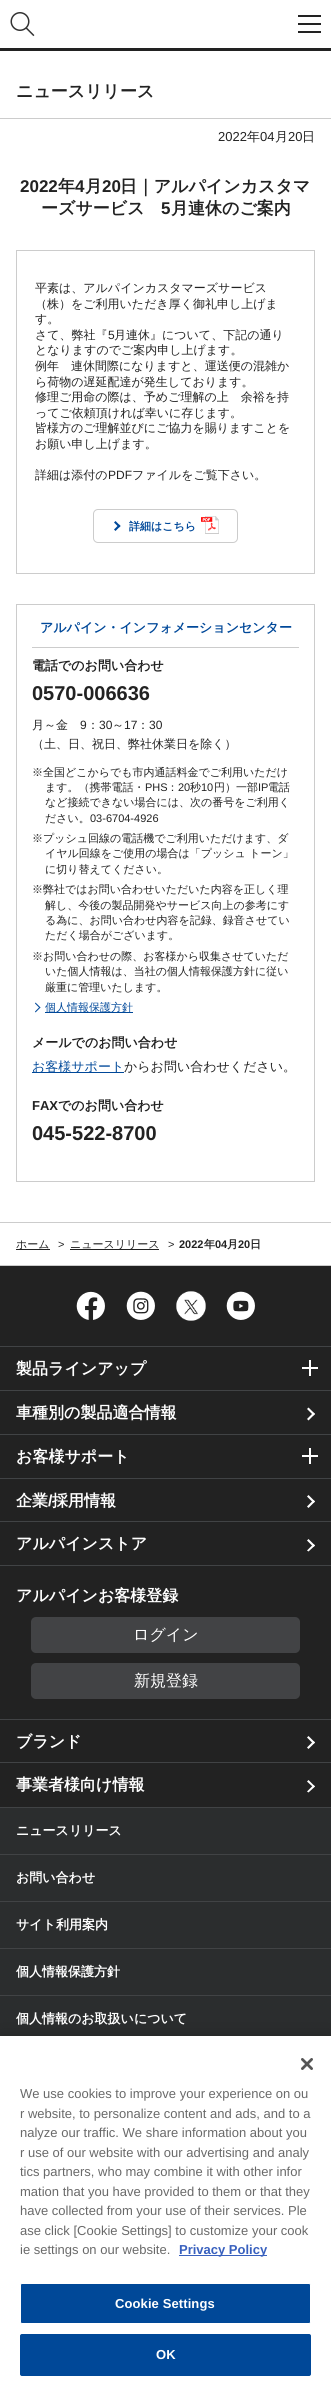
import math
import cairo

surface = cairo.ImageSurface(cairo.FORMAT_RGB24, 331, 2386)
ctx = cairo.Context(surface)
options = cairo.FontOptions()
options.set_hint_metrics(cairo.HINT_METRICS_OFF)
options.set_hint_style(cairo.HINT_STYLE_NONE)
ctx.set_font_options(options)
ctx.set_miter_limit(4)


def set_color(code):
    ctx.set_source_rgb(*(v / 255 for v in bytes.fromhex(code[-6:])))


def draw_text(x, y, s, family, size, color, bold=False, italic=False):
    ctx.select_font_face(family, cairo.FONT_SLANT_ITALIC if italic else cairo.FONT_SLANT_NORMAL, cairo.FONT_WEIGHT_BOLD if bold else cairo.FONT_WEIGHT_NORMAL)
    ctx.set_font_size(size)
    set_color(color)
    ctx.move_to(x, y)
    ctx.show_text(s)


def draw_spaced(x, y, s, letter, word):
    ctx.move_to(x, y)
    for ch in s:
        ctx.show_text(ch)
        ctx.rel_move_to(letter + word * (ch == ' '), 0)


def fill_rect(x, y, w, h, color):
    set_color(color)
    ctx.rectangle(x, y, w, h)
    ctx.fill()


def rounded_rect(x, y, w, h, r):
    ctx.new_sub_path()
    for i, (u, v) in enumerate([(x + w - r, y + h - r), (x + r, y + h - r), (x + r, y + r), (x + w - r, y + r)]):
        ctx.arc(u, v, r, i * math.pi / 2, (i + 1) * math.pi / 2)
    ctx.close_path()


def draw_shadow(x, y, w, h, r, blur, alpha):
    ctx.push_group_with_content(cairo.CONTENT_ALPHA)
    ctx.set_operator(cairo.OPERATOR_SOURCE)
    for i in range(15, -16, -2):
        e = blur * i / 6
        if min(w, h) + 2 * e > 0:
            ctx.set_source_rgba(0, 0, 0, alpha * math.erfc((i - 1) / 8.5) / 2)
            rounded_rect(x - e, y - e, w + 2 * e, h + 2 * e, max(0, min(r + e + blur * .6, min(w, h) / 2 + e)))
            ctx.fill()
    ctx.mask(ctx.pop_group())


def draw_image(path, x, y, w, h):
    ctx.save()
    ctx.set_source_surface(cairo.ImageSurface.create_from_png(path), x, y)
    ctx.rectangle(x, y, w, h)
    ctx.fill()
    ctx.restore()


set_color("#ffffff")
ctx.paint()
fill_rect(0, 48, 331, 3, "#222222")
draw_image("assets/img1.png", 10, 12, 25, 25)
fill_rect(298, 15, 23, 2, "#222222")
fill_rect(298, 23, 23, 2, "#222222")
fill_rect(298, 31, 23, 2, "#222222")
fill_rect(0, 118, 331, 1, "#cccccc")
draw_text(16, 97, "ニュースリリース", "WenQuanYi Zen Hei", 17, "#222222", bold=True)
draw_text(218, 141, "2022", "Liberation Sans", 13, "#222222")
draw_text(247, 141, "年", "WenQuanYi Zen Hei Medium", 13, "#222222")
draw_text(260, 141, "04", "Liberation Sans", 13, "#222222")
draw_text(275, 141, "月", "WenQuanYi Zen Hei Medium", 13, "#222222")
draw_text(288, 141, "20", "Liberation Sans", 13, "#222222")
draw_text(302, 141, "日", "WenQuanYi Zen Hei Medium", 13, "#222222")
draw_text(20, 192, "2022", "Liberation Sans", 17, "#222222", bold=True)
draw_text(58, 192, "年", "WenQuanYi Zen Hei", 17, "#222222", bold=True)
draw_text(75, 192, "4", "Liberation Sans", 17, "#222222", bold=True)
draw_text(85, 192, "月", "WenQuanYi Zen Hei", 17, "#222222", bold=True)
draw_text(102, 192, "20", "Liberation Sans", 17, "#222222", bold=True)
draw_text(120, 192, "日｜アルパインカスタマ", "WenQuanYi Zen Hei", 17, "#222222", bold=True)
draw_text(41, 214, "ーズサービス", "WenQuanYi Zen Hei", 17, "#222222", bold=True)
draw_text(161, 214, "5", "Liberation Sans", 17, "#222222", bold=True)
draw_text(171, 214, "月連休のご案内", "WenQuanYi Zen Hei", 17, "#222222", bold=True)
ctx.rectangle(16.5, 250.5, 298, 323)
set_color("#cccccc")
ctx.set_line_width(1)
ctx.stroke()
draw_text(35, 292, "平素は、アルパインカスタマーズサービス", "WenQuanYi Zen Hei Medium", 12, "#222222")
draw_text(35, 308, "（株）をご利用いただき厚く御礼申し上げま", "WenQuanYi Zen Hei Medium", 12, "#222222")
draw_text(35, 323, "す。", "WenQuanYi Zen Hei Medium", 12, "#222222")
draw_text(35, 339, "さて、弊社『", "WenQuanYi Zen Hei Medium", 12, "#222222")
draw_text(108, 339, "5", "Liberation Sans", 12, "#222222")
draw_text(114, 339, "月連休』について、下記の通り", "WenQuanYi Zen Hei Medium", 12, "#222222")
draw_text(35, 354, "となりますのでご案内申し上げます。", "WenQuanYi Zen Hei Medium", 12, "#222222")
draw_text(35, 370, "例年　連休間際になりますと、運送便の混雑か", "WenQuanYi Zen Hei Medium", 12, "#222222")
draw_text(35, 386, "ら荷物の遅延配達が発生しております。", "WenQuanYi Zen Hei Medium", 12, "#222222")
draw_text(35, 401, "修理ご用命の際は、予めご理解の上　余裕を持", "WenQuanYi Zen Hei Medium", 12, "#222222")
draw_text(35, 417, "ってご依頼頂ければ幸いに存じます。", "WenQuanYi Zen Hei Medium", 12, "#222222")
draw_text(35, 432, "皆様方のご理解並びにご協力を賜りますことを", "WenQuanYi Zen Hei Medium", 12, "#222222")
draw_text(35, 448, "お願い申し上げます。", "WenQuanYi Zen Hei Medium", 12, "#222222")
draw_text(35, 479, "詳細は添付の", "WenQuanYi Zen Hei Medium", 12, "#222222")
draw_text(108, 479, "PDF", "Liberation Sans", 12, "#222222")
draw_text(132, 479, "ファイルをご覧下さい。", "WenQuanYi Zen Hei Medium", 12, "#222222")
rounded_rect(93.5, 509.5, 144, 33, 4.5)
set_color("#cccccc")
ctx.stroke()
set_color("#004899")
ctx.new_path()
ctx.move_to(115.5, 521)
ctx.line_to(120.5, 526)
ctx.line_to(119, 527.5)
ctx.line_to(114, 522.5)
ctx.close_path()
ctx.fill()
ctx.new_path()
ctx.move_to(119, 524.5)
ctx.line_to(120.5, 526)
ctx.line_to(115.5, 531)
ctx.line_to(114, 529.5)
ctx.close_path()
ctx.fill()
draw_text(129, 530, "詳細はこちら", "WenQuanYi Zen Hei", 11, "#004899", bold=True)
draw_image("assets/img2.png", 201, 516, 18, 18)
ctx.rectangle(16.5, 604.5, 298, 577)
set_color("#cccccc")
ctx.stroke()
fill_rect(32, 647, 267, 1, "#cccccc")
draw_text(40, 632, "アルパイン・インフォメーションセンター", "WenQuanYi Zen Hei", 13, "#004899", bold=True)
draw_text(32, 670, "電話でのお問い合わせ", "WenQuanYi Zen Hei", 13, "#222222", bold=True)
draw_text(32, 700, "0570-006636", "Liberation Sans", 20, "#222222", bold=True)
draw_text(32, 729, "月～金", "WenQuanYi Zen Hei Medium", 12, "#222222")
draw_text(80, 729, "9", "Liberation Sans", 12, "#222222")
draw_text(87, 729, "：", "WenQuanYi Zen Hei Medium", 12, "#222222")
draw_text(99, 729, "30", "Liberation Sans", 12, "#222222")
draw_text(112, 729, "～", "WenQuanYi Zen Hei Medium", 12, "#222222")
draw_text(124, 729, "17", "Liberation Sans", 12, "#222222")
draw_text(137, 729, "：", "WenQuanYi Zen Hei Medium", 12, "#222222")
draw_text(149, 729, "30", "Liberation Sans", 12, "#222222")
draw_text(32, 748, "（土、日、祝日、弊社休業日を除く）", "WenQuanYi Zen Hei Medium", 12, "#222222")
draw_text(32, 776, "※全国どこからでも市内通話料金でご利用いただけ", "WenQuanYi Zen Hei Medium", 11, "#222222")
draw_text(45, 791, "ます。（携帯電話・", "WenQuanYi Zen Hei Medium", 11, "#222222")
draw_text(145, 791, "PHS", "Liberation Sans", 11, "#222222")
draw_text(167, 791, "：", "WenQuanYi Zen Hei Medium", 11, "#222222")
draw_text(178, 791, "20", "Liberation Sans", 11, "#222222")
draw_text(190, 791, "秒", "WenQuanYi Zen Hei Medium", 11, "#222222")
draw_text(201, 791, "10", "Liberation Sans", 11, "#222222")
draw_text(214, 791, "円）一部", "WenQuanYi Zen Hei Medium", 11, "#222222")
draw_text(258, 791, "IP", "Liberation Sans", 11, "#222222")
draw_text(268, 791, "電話", "WenQuanYi Zen Hei Medium", 11, "#222222")
draw_text(45, 806, "など接続できない場合には、次の番号をご利用く", "WenQuanYi Zen Hei Medium", 11, "#222222")
draw_text(45, 822, "ださい。", "WenQuanYi Zen Hei Medium", 11, "#222222")
draw_text(90, 822, "03-6704-4926", "Liberation Sans", 11, "#222222")
draw_text(32, 842, "※プッシュ回線の電話機でご利用いただけます、ダ", "WenQuanYi Zen Hei Medium", 11, "#222222")
draw_text(45, 857, "イヤル回線をご使用の場合は「プッシュ トーン」", "WenQuanYi Zen Hei Medium", 11, "#222222")
draw_text(45, 873, "に切り替えてください。", "WenQuanYi Zen Hei Medium", 11, "#222222")
draw_text(32, 893, "※弊社ではお問い合わせいただいた内容を正しく理", "WenQuanYi Zen Hei Medium", 11, "#222222")
draw_text(45, 909, "解し、今後の製品開発やサービス向上の参考にす", "WenQuanYi Zen Hei Medium", 11, "#222222")
draw_text(45, 924, "る為に、お問い合わせ内容を記録、録音させてい", "WenQuanYi Zen Hei Medium", 11, "#222222")
draw_text(45, 939, "ただく場合がございます。", "WenQuanYi Zen Hei Medium", 11, "#222222")
draw_text(32, 960, "※お問い合わせの際、お客様から収集させていただ", "WenQuanYi Zen Hei Medium", 11, "#222222")
draw_text(45, 975, "いた個人情報は、当社の個人情報保護方針に従い", "WenQuanYi Zen Hei Medium", 11, "#222222")
draw_text(45, 991, "厳重に管理いたします。", "WenQuanYi Zen Hei Medium", 11, "#222222")
set_color("#004899")
ctx.new_path()
ctx.move_to(35.5, 1002.5)
ctx.line_to(40.5, 1007.5)
ctx.line_to(39.5, 1008)
ctx.line_to(35, 1003.5)
ctx.close_path()
ctx.fill()
ctx.new_path()
ctx.move_to(39.5, 1007)
ctx.line_to(40.5, 1007.5)
ctx.line_to(35.5, 1012.5)
ctx.line_to(35, 1011.5)
ctx.close_path()
ctx.fill()
fill_rect(45, 1012, 88, 1, "#004899")
draw_text(45, 1011, "個人情報保護方針", "WenQuanYi Zen Hei Medium", 11, "#004899")
draw_text(32, 1047, "メールでのお問い合わせ", "WenQuanYi Zen Hei", 13, "#222222", bold=True)
fill_rect(32, 1072, 92, 1, "#004899")
draw_text(32, 1071, "お客様サポート", "WenQuanYi Zen Hei Medium", 13, "#004899")
draw_text(124, 1071, "からお問い合わせください。", "WenQuanYi Zen Hei Medium", 13, "#222222")
draw_text(32, 1110, "FAX", "Liberation Sans", 13, "#222222", bold=True)
draw_text(58, 1110, "でのお問い合わせ", "WenQuanYi Zen Hei", 13, "#222222", bold=True)
draw_text(32, 1140, "045-522-8700", "Liberation Sans", 20, "#222222", bold=True)
fill_rect(0, 1222, 331, 1, "#cccccc")
fill_rect(0, 1265, 331, 1, "#cccccc")
fill_rect(16, 1249, 34, 1, "#222222")
draw_text(16, 1248, "ホーム", "WenQuanYi Zen Hei Medium", 11, "#222222")
draw_text(58, 1248, ">", "Liberation Sans", 11, "#222222")
fill_rect(70, 1249, 89, 1, "#222222")
draw_text(70, 1248, "ニュースリリース", "WenQuanYi Zen Hei Medium", 11, "#222222")
draw_text(168, 1248, ">", "Liberation Sans", 11, "#222222")
draw_text(179, 1248, "2022", "Liberation Sans", 11, "#222222", bold=True)
draw_text(204, 1248, "年", "WenQuanYi Zen Hei", 11, "#222222", bold=True)
draw_text(215, 1248, "04", "Liberation Sans", 11, "#222222", bold=True)
draw_text(227, 1248, "月", "WenQuanYi Zen Hei", 11, "#222222", bold=True)
draw_text(238, 1248, "20", "Liberation Sans", 11, "#222222", bold=True)
draw_text(250, 1248, "日", "WenQuanYi Zen Hei", 11, "#222222", bold=True)
fill_rect(0, 1266, 331, 541, "#222222")
draw_image("assets/img3.png", 76, 1291, 29, 29)
draw_image("assets/img4.png", 126, 1291, 29, 29)
draw_image("assets/img5.png", 176, 1291, 30, 30)
draw_image("assets/img6.png", 226, 1291, 29, 29)
fill_rect(0, 1346, 331, 1, "#414345")
draw_text(16, 1374, "製品ラインアップ", "WenQuanYi Zen Hei", 16, "#ffffff", bold=True)
fill_rect(309, 1360, 2, 16, "#ffffff")
fill_rect(302, 1367, 16, 2, "#ffffff")
fill_rect(0, 1390, 331, 1, "#414345")
draw_text(16, 1418, "車種別の製品適合情報", "WenQuanYi Zen Hei", 16, "#ffffff", bold=True)
ctx.new_path()
ctx.move_to(308.5, 1407.5)
ctx.line_to(315, 1414)
ctx.line_to(313.5, 1415.5)
ctx.line_to(307, 1409)
ctx.close_path()
ctx.fill()
ctx.new_path()
ctx.move_to(313.5, 1412.5)
ctx.line_to(315, 1414)
ctx.line_to(308.5, 1420.5)
ctx.line_to(307, 1419)
ctx.close_path()
ctx.fill()
fill_rect(0, 1434, 331, 1, "#414345")
draw_text(16, 1462, "お客様サポート", "WenQuanYi Zen Hei", 16, "#ffffff", bold=True)
fill_rect(309, 1448, 2, 16, "#ffffff")
fill_rect(302, 1455, 16, 2, "#ffffff")
fill_rect(0, 1478, 331, 1, "#414345")
draw_text(16, 1506, "企業", "WenQuanYi Zen Hei", 16, "#ffffff", bold=True)
draw_text(48, 1506, "/", "Liberation Sans", 16, "#ffffff", bold=True)
draw_text(52, 1506, "採用情報", "WenQuanYi Zen Hei", 16, "#ffffff", bold=True)
ctx.new_path()
ctx.move_to(308.5, 1495)
ctx.line_to(315, 1501.5)
ctx.line_to(313.5, 1503)
ctx.line_to(307, 1496.5)
ctx.close_path()
ctx.fill()
ctx.new_path()
ctx.move_to(313.5, 1500)
ctx.line_to(315, 1501.5)
ctx.line_to(308.5, 1508)
ctx.line_to(307, 1506.5)
ctx.close_path()
ctx.fill()
fill_rect(0, 1521, 331, 1, "#414345")
draw_text(16, 1549, "アルパインストア", "WenQuanYi Zen Hei", 16, "#ffffff", bold=True)
ctx.new_path()
ctx.move_to(308.5, 1539)
ctx.line_to(315, 1545.5)
ctx.line_to(313.5, 1547)
ctx.line_to(307, 1540.5)
ctx.close_path()
ctx.fill()
ctx.new_path()
ctx.move_to(313.5, 1544)
ctx.line_to(315, 1545.5)
ctx.line_to(308.5, 1551.5)
ctx.line_to(307, 1550.5)
ctx.close_path()
ctx.fill()
fill_rect(0, 1565, 331, 1, "#414345")
draw_text(16, 1601, "アルパインお客様登録", "WenQuanYi Zen Hei", 16, "#ffffff", bold=True)
set_color("#424345")
rounded_rect(31, 1617, 269, 36, 5)
ctx.fill()
draw_text(133, 1640, "ログイン", "WenQuanYi Zen Hei Medium", 16, "#ffffff")
set_color("#424345")
rounded_rect(31, 1663, 269, 36, 5)
ctx.fill()
draw_text(134, 1686, "新規登録", "WenQuanYi Zen Hei Medium", 16, "#ffffff")
fill_rect(0, 1719, 331, 1, "#414345")
draw_text(16, 1747, "ブランド", "WenQuanYi Zen Hei", 16, "#ffffff", bold=True)
ctx.new_path()
ctx.move_to(308.5, 1736)
ctx.line_to(315, 1742.5)
ctx.line_to(313.5, 1744)
ctx.line_to(307, 1737.5)
ctx.close_path()
ctx.fill()
ctx.new_path()
ctx.move_to(313.5, 1741)
ctx.line_to(315, 1742.5)
ctx.line_to(308.5, 1749)
ctx.line_to(307, 1747.5)
ctx.close_path()
ctx.fill()
fill_rect(0, 1762, 331, 1, "#414345")
draw_text(16, 1790, "事業者様向け情報", "WenQuanYi Zen Hei", 16, "#ffffff", bold=True)
ctx.new_path()
ctx.move_to(308.5, 1780)
ctx.line_to(315, 1786.5)
ctx.line_to(313.5, 1787.5)
ctx.line_to(307, 1781.5)
ctx.close_path()
ctx.fill()
ctx.new_path()
ctx.move_to(313.5, 1785)
ctx.line_to(315, 1786.5)
ctx.line_to(308.5, 1792.5)
ctx.line_to(307, 1791.5)
ctx.close_path()
ctx.fill()
fill_rect(0, 1808, 331, 46, "#2b2d2e")
fill_rect(0, 1807, 331, 1, "#414345")
draw_text(16, 1835, "ニュースリリース", "WenQuanYi Zen Hei", 13, "#ffffff", bold=True)
fill_rect(0, 1855, 331, 46, "#2b2d2e")
fill_rect(0, 1854, 331, 1, "#414345")
draw_text(16, 1882, "お問い合わせ", "WenQuanYi Zen Hei", 13, "#ffffff", bold=True)
fill_rect(0, 1902, 331, 46, "#2b2d2e")
fill_rect(0, 1901, 331, 1, "#414345")
draw_text(16, 1929, "サイト利用案内", "WenQuanYi Zen Hei", 13, "#ffffff", bold=True)
fill_rect(0, 1949, 331, 46, "#2b2d2e")
fill_rect(0, 1948, 331, 1, "#414345")
draw_text(16, 1976, "個人情報保護方針", "WenQuanYi Zen Hei", 13, "#ffffff", bold=True)
fill_rect(0, 1996, 331, 40, "#2b2d2e")
fill_rect(0, 1995, 331, 1, "#414345")
draw_text(16, 2023, "個人情報のお取扱いについて", "WenQuanYi Zen Hei", 13, "#ffffff", bold=True)
set_color("#000000")
draw_shadow(0, 2036, 331, 350, 0, 9, 0.2)
fill_rect(0, 2036, 331, 350, "#ffffff")
draw_image("assets/img7.png", 301, 2058, 12, 12)
draw_text(20, 2098, "We use cookies to improve your experience on ou", "Liberation Sans", 13, "#696969")
draw_text(20, 2118, "r website, to personalize content and ads, and to a", "Liberation Sans", 13, "#696969")
draw_text(20, 2137, "nalyze our traffic. We share information about you", "Liberation Sans", 13, "#696969")
draw_text(20, 2157, "r use of our website with our advertising and analy", "Liberation Sans", 13, "#696969")
draw_text(20, 2176, "tics partners, who may combine it with other infor", "Liberation Sans", 13, "#696969")
draw_text(20, 2196, "mation that you have provided to them or that they", "Liberation Sans", 13, "#696969")
draw_text(20, 2215, "have collected from your use of their services. Ple", "Liberation Sans", 13, "#696969")
draw_text(20, 2235, "ase click [Cookie Settings] to customize your cook", "Liberation Sans", 13, "#696969")
draw_text(20, 2254, "ie settings on our website.", "Liberation Sans", 13, "#696969")
fill_rect(179, 2255, 88, 1, "#3860be")
draw_text(179, 2254, "Privacy Policy", "Liberation Sans", 13, "#3860be", bold=True)
set_color("#004898")
rounded_rect(20.5, 2283.5, 290, 40, 1.5)
ctx.fill_preserve()
set_color("#ffffff")
ctx.stroke()
draw_spaced(115, 2308, "Cookie Settings", 0.1, 0)
set_color("#004898")
rounded_rect(20.5, 2334.5, 290, 41, 1.5)
ctx.fill_preserve()
ctx.stroke()
set_color("#ffffff")
draw_spaced(156, 2359, "OK", 0.1, 0)
surface.write_to_png("output.png")
